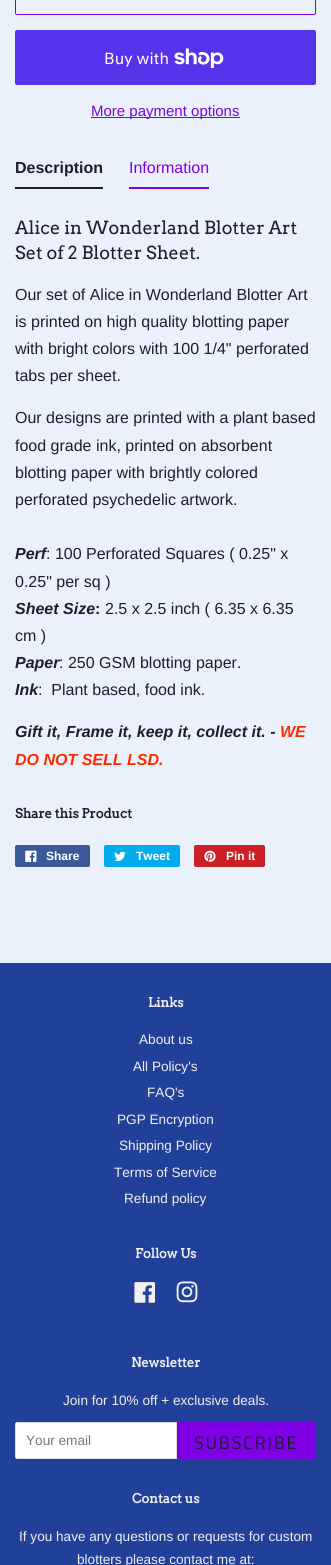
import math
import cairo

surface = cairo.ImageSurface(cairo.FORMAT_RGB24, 331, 1565)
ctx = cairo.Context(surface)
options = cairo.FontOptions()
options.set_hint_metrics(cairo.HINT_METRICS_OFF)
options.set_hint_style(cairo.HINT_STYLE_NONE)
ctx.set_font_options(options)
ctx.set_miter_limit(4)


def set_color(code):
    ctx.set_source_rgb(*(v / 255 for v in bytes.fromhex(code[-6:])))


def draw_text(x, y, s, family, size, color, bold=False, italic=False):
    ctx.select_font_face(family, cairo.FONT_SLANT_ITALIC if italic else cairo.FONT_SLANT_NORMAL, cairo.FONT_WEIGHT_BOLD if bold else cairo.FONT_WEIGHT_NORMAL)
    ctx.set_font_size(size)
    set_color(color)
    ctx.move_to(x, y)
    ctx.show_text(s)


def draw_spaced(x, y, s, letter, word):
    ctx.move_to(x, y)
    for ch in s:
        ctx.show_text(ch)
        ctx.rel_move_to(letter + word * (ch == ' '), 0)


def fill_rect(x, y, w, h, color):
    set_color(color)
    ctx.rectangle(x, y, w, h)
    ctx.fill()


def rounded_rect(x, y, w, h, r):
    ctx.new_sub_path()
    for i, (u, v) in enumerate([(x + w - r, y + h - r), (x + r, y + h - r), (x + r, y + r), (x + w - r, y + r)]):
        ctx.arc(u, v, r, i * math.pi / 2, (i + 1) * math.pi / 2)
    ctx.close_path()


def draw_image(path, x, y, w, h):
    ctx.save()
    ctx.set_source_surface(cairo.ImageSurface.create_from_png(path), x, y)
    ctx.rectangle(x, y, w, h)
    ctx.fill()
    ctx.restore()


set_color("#ebf1fb")
ctx.paint()
rounded_rect(15.5, -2.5, 300, 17, 1.5)
set_color("#7f00e4")
ctx.set_line_width(1)
ctx.stroke()
set_color("#5433eb")
rounded_rect(15, 30, 301, 55, 2)
ctx.fill()
draw_text(104, 64, "Buy with", "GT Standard", 16, "#ffffff")
draw_image("assets/img1.png", 174, 48, 50, 20)
fill_rect(91, 117, 149, 1, "#7f00e4")
draw_text(91, 116, "More payment options", "Liberation Sans", 15, "#7f00e4")
fill_rect(15, 187, 88, 2, "#1b1e2f")
draw_text(15, 173, "Description", "Liberation Sans", 16, "#1b1e2f", bold=True)
fill_rect(129, 187, 80, 2, "#7f00e4")
draw_text(129, 173, "Information", "Liberation Sans", 16, "#7f00e4")
draw_text(15, 234, "Alice in Wonderland Blotter Art", "Arvo", 18, "#1b1e2f")
draw_text(15, 259, "Set of 2 Blotter Sheet.", "Arvo", 18, "#1b1e2f")
draw_text(15, 300, "Our set of Alice in Wonderland Blotter Art", "Liberation Sans", 16, "#1b1e2f")
draw_text(15, 327, "is printed on high quality blotting paper", "Liberation Sans", 16, "#1b1e2f")
draw_text(15, 354, "with bright colors with 100 1/4\" perforated", "Liberation Sans", 16, "#1b1e2f")
draw_text(15, 381, "tabs per sheet.", "Liberation Sans", 16, "#1b1e2f")
draw_text(15, 423, "Our designs are printed with a plant based", "Liberation Sans", 16, "#1b1e2f")
draw_text(15, 451, "food grade ink, printed on absorbent", "Liberation Sans", 16, "#1b1e2f")
draw_text(15, 478, "blotting paper with brightly colored", "Liberation Sans", 16, "#1b1e2f")
draw_text(15, 505, "perforated psychedelic artwork.", "Liberation Sans", 16, "#1b1e2f")
draw_text(15, 559, "Perf", "Liberation Sans", 16, "#1b1e2f", bold=True, italic=True)
draw_text(46, 559, ": 100 Perforated Squares ( 0.25\" x", "Liberation Sans", 16, "#1b1e2f")
draw_text(15, 587, "0.25\" per sq )", "Liberation Sans", 16, "#1b1e2f")
draw_text(15, 614, "Sheet Size", "Liberation Sans", 16, "#1b1e2f", bold=True, italic=True)
draw_text(95, 614, ":", "Liberation Sans", 16, "#1b1e2f", bold=True)
draw_text(105, 614, "2.5 x 2.5 inch ( 6.35 x 6.35", "Liberation Sans", 16, "#1b1e2f")
draw_text(15, 641, "cm )", "Liberation Sans", 16, "#1b1e2f")
draw_text(15, 668, "Paper", "Liberation Sans", 16, "#1b1e2f", bold=True, italic=True)
draw_text(59, 668, ": 250 GSM blotting paper.", "Liberation Sans", 16, "#1b1e2f")
draw_text(15, 695, "Ink", "Liberation Sans", 16, "#1b1e2f", bold=True, italic=True)
draw_text(38, 695, ":  Plant based, food ink.", "Liberation Sans", 16, "#1b1e2f")
draw_text(15, 737, "Gift it, Frame it, keep it, collect it. -", "Liberation Sans", 16, "#1b1e2f", bold=True, italic=True)
draw_text(280, 737, "WE", "Liberation Sans", 16, "#ff2a00", bold=True, italic=True)
draw_text(15, 765, "DO NOT SELL LSD.", "Liberation Sans", 16, "#ff2a00", bold=True, italic=True)
draw_text(15, 818, "Share this Product", "Arvo", 13, "#1b1e2f", bold=True)
set_color("#3b5998")
rounded_rect(15, 845, 75, 22, 2)
ctx.fill()
draw_image("assets/img2.png", 25, 850, 12, 12)
draw_text(46, 860, "Share", "Liberation Sans", 12, "#ffffff", bold=True)
set_color("#00aced")
rounded_rect(104, 845, 76, 22, 2)
ctx.fill()
draw_image("assets/img3.png", 114, 851, 12, 10)
draw_text(136, 860, "Tweet", "Liberation Sans", 12, "#ffffff", bold=True)
set_color("#cb2027")
rounded_rect(194, 845, 71, 22, 2)
ctx.fill()
draw_image("assets/img4.png", 204, 850, 12, 12)
draw_text(226, 860, "Pin it", "Liberation Sans", 12, "#ffffff", bold=True)
fill_rect(0, 963, 331, 602, "#21409a")
draw_text(148, 1007, "Links", "Arvo", 13, "#f2f0ee", bold=True)
draw_text(139, 1044, "About us", "Liberation Sans", 13.6, "#f2f0ee")
draw_text(133, 1071, "All Policy's", "Liberation Sans", 13.6, "#f2f0ee")
draw_text(147, 1097, "FAQ's", "Liberation Sans", 13.6, "#f2f0ee")
draw_text(117, 1124, "PGP Encryption", "Liberation Sans", 13.6, "#f2f0ee")
draw_text(119, 1150, "Shipping Policy", "Liberation Sans", 13.6, "#f2f0ee")
draw_text(114, 1177, "Terms of Service", "Liberation Sans", 13.6, "#f2f0ee")
draw_text(124, 1203, "Refund policy", "Liberation Sans", 13.6, "#f2f0ee")
draw_text(135, 1258, "Follow Us", "Arvo", 13, "#f2f0ee", bold=True)
draw_image("assets/img5.png", 134, 1282, 21, 21)
draw_image("assets/img6.png", 176, 1281, 22, 22)
draw_text(131, 1367, "Newsletter", "Arvo", 13, "#f2f0ee", bold=True)
draw_text(63, 1405, "Join for 10% off + exclusive deals.", "Liberation Sans", 13.6, "#f2f0ee")
set_color("#ffffff")
ctx.new_path()
ctx.move_to(17, 1422)
ctx.line_to(177, 1422)
ctx.line_to(177, 1459)
ctx.line_to(17, 1459)
ctx.curve_to(16, 1459, 15, 1458, 15, 1457)
ctx.line_to(15, 1424)
ctx.curve_to(15, 1423, 16, 1422, 17, 1422)
ctx.close_path()
ctx.fill()
ctx.new_path()
ctx.move_to(17, 1422.5)
ctx.line_to(176.5, 1422.5)
ctx.line_to(176.5, 1458.5)
ctx.line_to(17, 1458.5)
ctx.curve_to(16, 1458.5, 15.5, 1458, 15.5, 1457)
ctx.line_to(15.5, 1424)
ctx.curve_to(15.5, 1423, 16, 1422.5, 17, 1422.5)
ctx.close_path()
ctx.set_source_rgba(0.106, 0.118, 0.184, 0.15)
ctx.stroke()
draw_text(26, 1445, "Your email", "Liberation Sans", 13.6, "#757575")
set_color("#7f00e4")
ctx.new_path()
ctx.move_to(177, 1422)
ctx.line_to(314, 1422)
ctx.curve_to(315, 1422, 316, 1423, 316, 1424)
ctx.line_to(316, 1457)
ctx.curve_to(316, 1458, 315, 1459, 314, 1459)
ctx.line_to(177, 1459)
ctx.close_path()
ctx.fill()
ctx.select_font_face("Titillium Web")
ctx.set_font_size(18)
set_color("#1b1e2f")
draw_spaced(194, 1449, "SUBSCRIBE", 1.75, 0)
draw_text(132, 1503, "Contact us", "Arvo", 13, "#f2f0ee", bold=True)
draw_text(19, 1541, "If you have any questions or requests for custom", "Liberation Sans", 13.6, "#f2f0ee")
draw_text(77, 1564, "blotters please contact me at:", "Liberation Sans", 13.6, "#f2f0ee")
surface.write_to_png("output.png")
